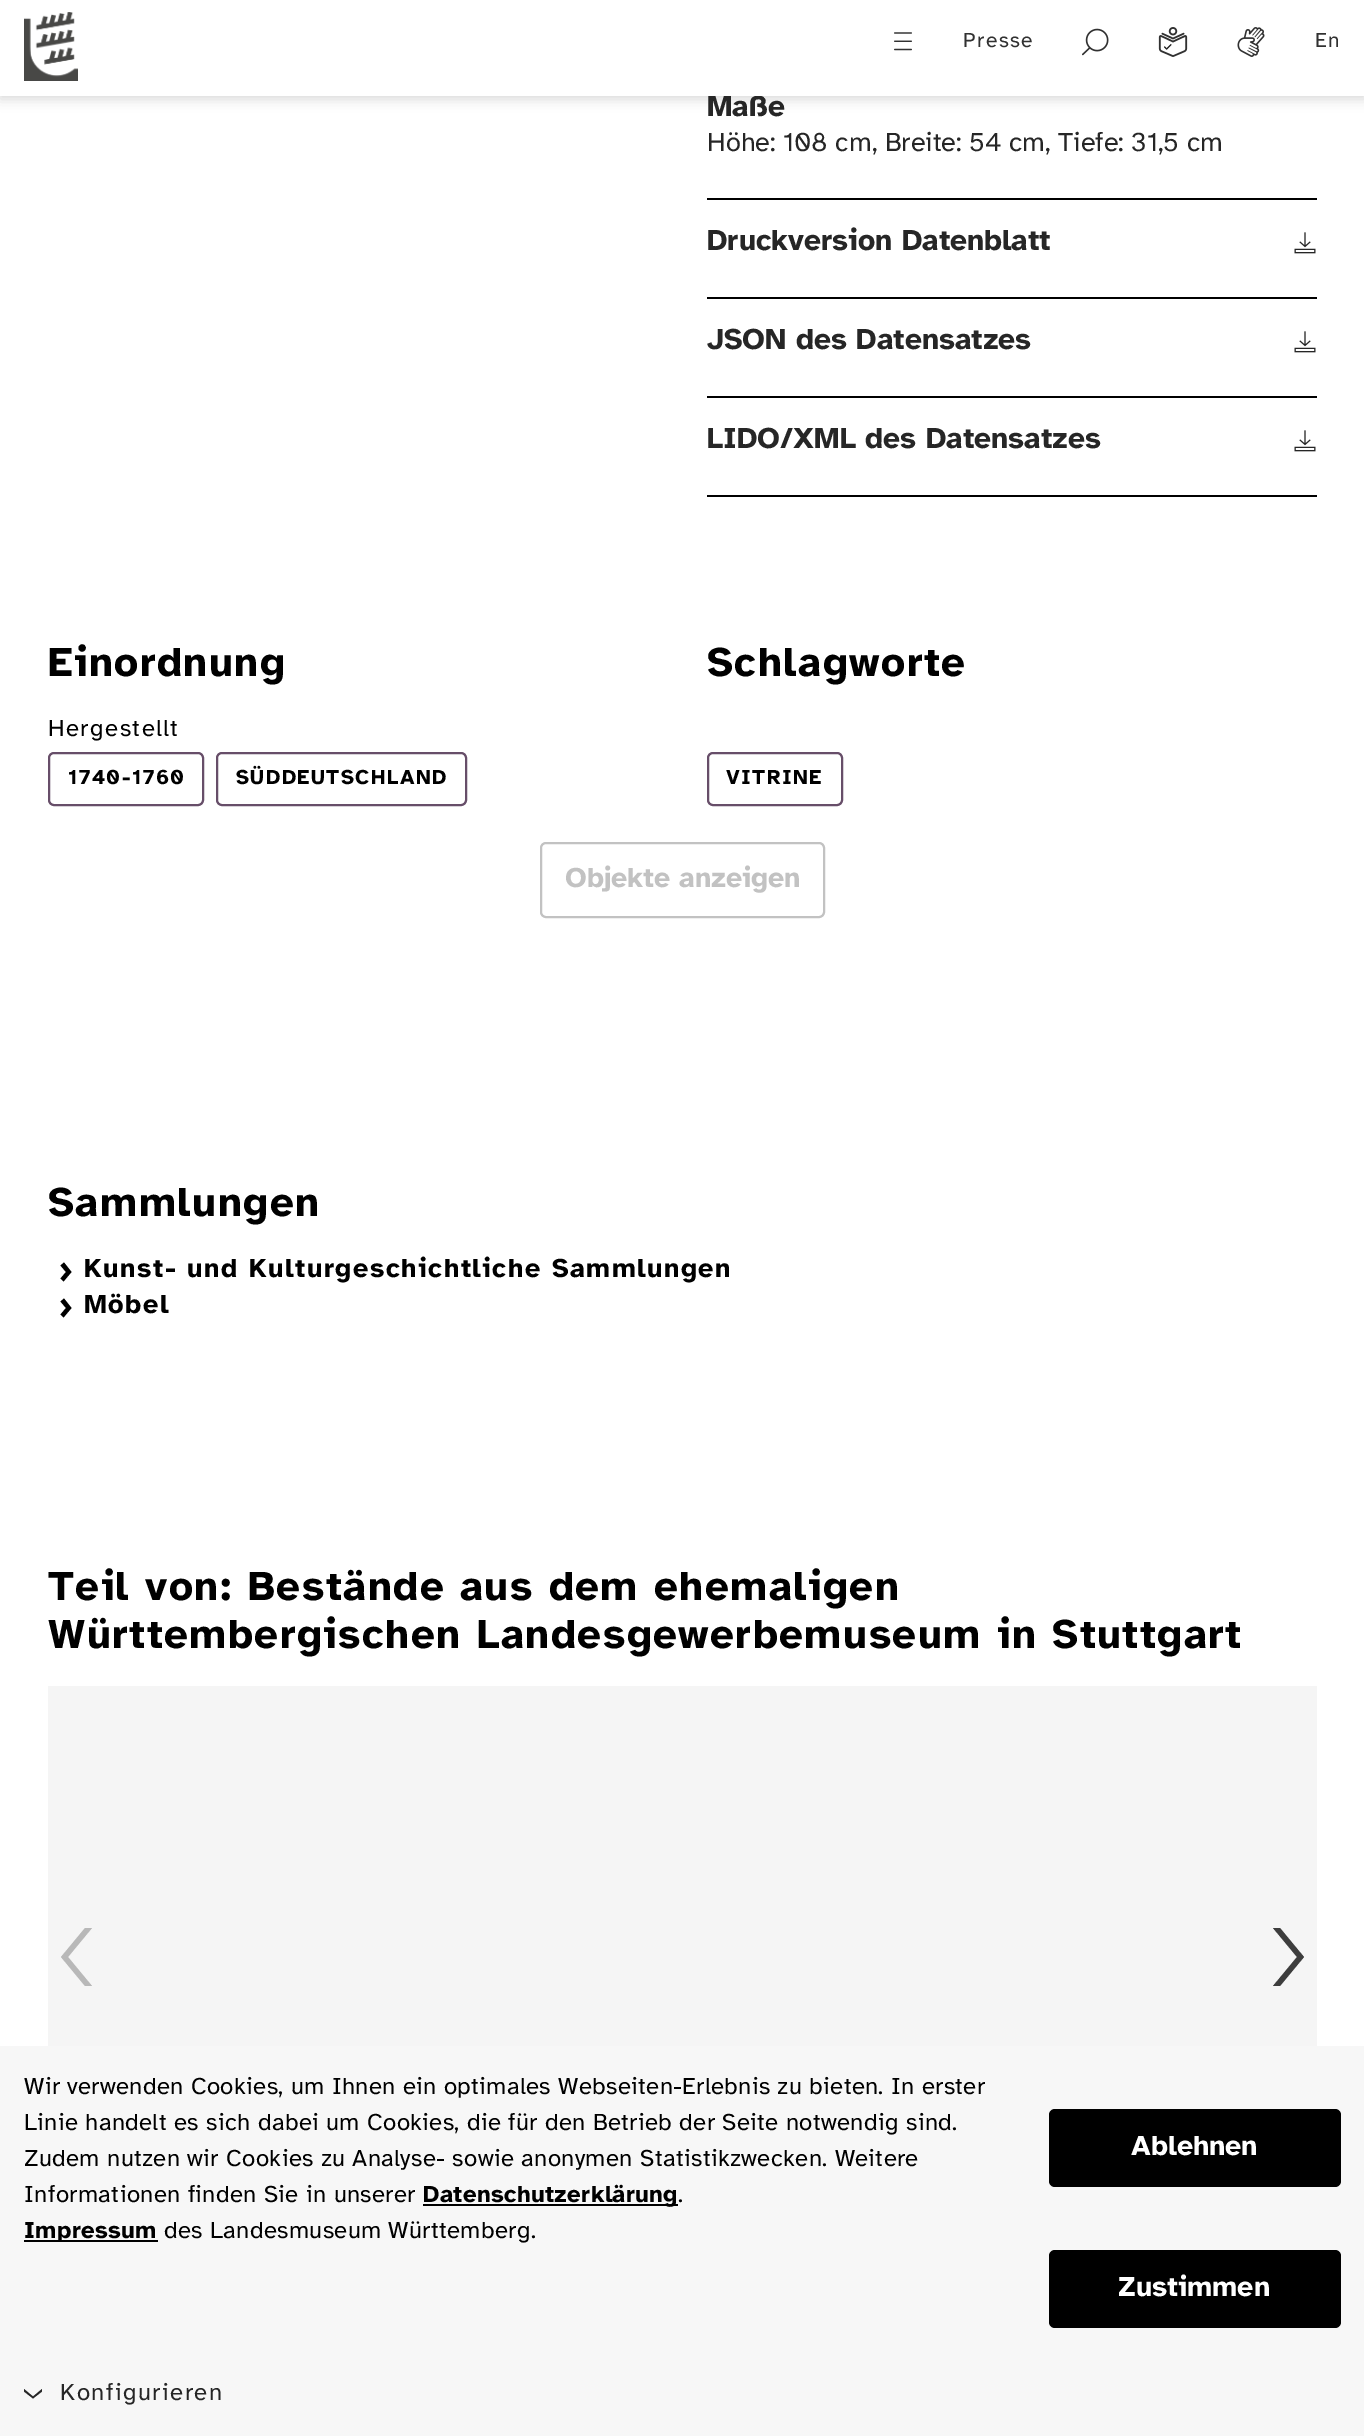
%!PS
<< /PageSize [1364 2436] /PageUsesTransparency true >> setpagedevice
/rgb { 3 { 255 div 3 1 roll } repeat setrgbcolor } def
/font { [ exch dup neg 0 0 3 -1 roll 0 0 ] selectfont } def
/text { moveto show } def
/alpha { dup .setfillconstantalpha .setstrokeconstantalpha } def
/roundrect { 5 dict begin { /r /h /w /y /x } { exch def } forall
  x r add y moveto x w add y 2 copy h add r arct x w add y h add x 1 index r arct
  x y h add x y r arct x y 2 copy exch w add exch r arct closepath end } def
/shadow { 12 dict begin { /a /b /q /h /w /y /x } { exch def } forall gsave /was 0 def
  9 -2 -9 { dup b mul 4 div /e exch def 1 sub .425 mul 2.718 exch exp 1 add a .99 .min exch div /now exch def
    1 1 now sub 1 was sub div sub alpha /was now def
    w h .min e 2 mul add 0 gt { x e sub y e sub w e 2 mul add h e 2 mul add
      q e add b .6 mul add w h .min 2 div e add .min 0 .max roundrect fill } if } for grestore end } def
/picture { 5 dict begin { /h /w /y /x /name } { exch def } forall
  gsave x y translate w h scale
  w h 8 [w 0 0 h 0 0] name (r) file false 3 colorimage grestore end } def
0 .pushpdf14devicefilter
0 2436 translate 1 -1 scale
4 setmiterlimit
255 255 255 rgb
0 0 1364 2436 rectfill
0 0 0 rgb
0 3 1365 96 0 6 0.15 shadow
707 198 610 2 rectfill
707 297 610 2 rectfill
(img_06.rgb) 1294 232 22 22 picture
707 396 610 2 rectfill
(img_06.rgb) 1294 331 22 22 picture
707 495 610 2 rectfill
(img_06.rgb) 1294 430 22 22 picture
103 78 105 rgb
2 setlinewidth
49 753 154 52 5 roundrect stroke
217 753 249 52 5 roundrect stroke
708 753 134 52 5 roundrect stroke
194 194 194 rgb
541 843 283 74 5 roundrect stroke
0 0 0 rgb
64 1262.5 moveto -3.5 3 rlineto 5.5 6.5 rlineto -5.5 6.5 rlineto 3 3 rlineto 8 -9.5 rlineto closepath fill
64 1298.5 moveto -3.5 3 rlineto 5.5 6.5 rlineto -5.5 6.5 rlineto 3 3 rlineto 8 -9.5 rlineto closepath fill
245 245 245 rgb
48 1686 1269 360 rectfill
184 184 184 rgb
92 1928 moveto -24 29 rlineto 24 29 rlineto -7 0 rlineto -24 -29 rlineto 24 -29 rlineto closepath fill
61 61 61 rgb
1273 1986 moveto 24 -29 rlineto -24 -29 rlineto 7 0 rlineto 24 29 rlineto -24 29 rlineto closepath fill
247 247 247 rgb
0 2046 1364 390 rectfill
0 0 0 rgb
423 2204 255 2 rectfill
24 2240 134 2 rectfill
1049 2109 292 78 6 roundrect fill
1049 2250 292 78 6 roundrect fill
38 38 38 rgb
24 2389 moveto 9 7.5 rlineto 9 -7.5 rlineto 0 2.5 rlineto -9 7 rlineto -9 -7 rlineto closepath fill
/AtkinsonHyperlegible-Bold 30 font
(Maße) 707 116 text
255 255 255 rgb
0 0 1364 96 rectfill
/AtkinsonHyperlegible-Regular 21 font
49 49 49 rgb
1315 47 moveto 1.5 0 (En) ashow
(img_05.rgb) 1237 27 28 30 picture
(img_04.rgb) 1158 27 30 30 picture
(img_03.rgb) 1082 28 27 28 picture
963 47 moveto 1.5 0 (Presse) ashow
(img_02.rgb) 894 32 18 19 picture
(img_01.rgb) 24 12 54 69 picture
/AtkinsonHyperlegible-Regular 27 font
38 38 38 rgb
(Höhe: 108 cm, Breite: 54 cm, Tiefe: 31,5 cm) 707 151 text
/AtkinsonHyperlegible-Bold 30 font
(Druckversion Datenblatt) 707 250 text
(JSON des Datensatzes) 707 349 text
(LIDO/XML des Datensatzes) 707 448 text
/AtkinsonHyperlegible-Bold 42 font
0 0 0 rgb
48 676 moveto 1.5 0 (Einordnung) ashow
/AtkinsonHyperlegible-Regular 24 font
48 736 moveto 1.5 0 (Hergestellt) ashow
/AtkinsonHyperlegible-Bold 21 font
68 784 moveto 1.5 0 (1740-1760) ashow
236 784 moveto 1.5 0 (SÜDDEUTSCHLAND) ashow
/AtkinsonHyperlegible-Bold 42 font
707 676 moveto 1.5 0 (Schlagworte) ashow
/AtkinsonHyperlegible-Bold 21 font
726 784 moveto 1.5 0 (VITRINE) ashow
/AtkinsonHyperlegible-Bold 28.5 font
194 194 194 rgb
(Objekte anzeigen) 565 887 text
/AtkinsonHyperlegible-Bold 42 font
0 0 0 rgb
48 1216 moveto 1.5 0 (Sammlungen) ashow
/AtkinsonHyperlegible-Bold 27 font
84 1277 moveto 1.5 0 (Kunst- und Kulturgeschichtliche Sammlungen) ashow
84 1313 moveto 1.5 0 (Möbel) ashow
/AtkinsonHyperlegible-Bold 42 font
48 1600 moveto 1.5 0 (Teil von: Bestände aus dem ehemaligen) ashow
48 1648 moveto 1.5 0 (Württembergischen Landesgewerbemuseum in Stuttgart) ashow
/AtkinsonHyperlegible-Regular 24 font
24 2094 moveto 0.38 0 (Wir verwenden Cookies, um Ihnen ein optimales Webseiten-Erlebnis zu bieten. In erster) ashow
24 2130 moveto 0.38 0 (Linie handelt es sich dabei um Cookies, die für den Betrieb der Seite notwendig sind.) ashow
24 2166 moveto 0.38 0 (Zudem nutzen wir Cookies zu Analyse- sowie anonymen Statistikzwecken. Weitere) ashow
24 2202 moveto 0.38 0 (Informationen finden Sie in unserer) ashow
/AtkinsonHyperlegible-Bold 24 font
423 2202 moveto 0.38 0 (Datenschutzerklärung) ashow
/AtkinsonHyperlegible-Regular 24 font
678 2202 moveto 0.38 0 (.) ashow
/AtkinsonHyperlegible-Bold 24 font
24 2238 moveto 0.38 0 (Impressum) ashow
/AtkinsonHyperlegible-Regular 24 font
164 2238 moveto 0.38 0 (des Landesmuseum Württemberg.) ashow
/AtkinsonHyperlegible-Bold 28.5 font
255 255 255 rgb
(Ablehnen) 1131 2155 text
(Zustimmen) 1118 2296 text
/AtkinsonHyperlegible-Regular 24 font
38 38 38 rgb
60 2400 moveto 1.5 0 (Konfigurieren) ashow
.poppdf14devicefilter showpage
